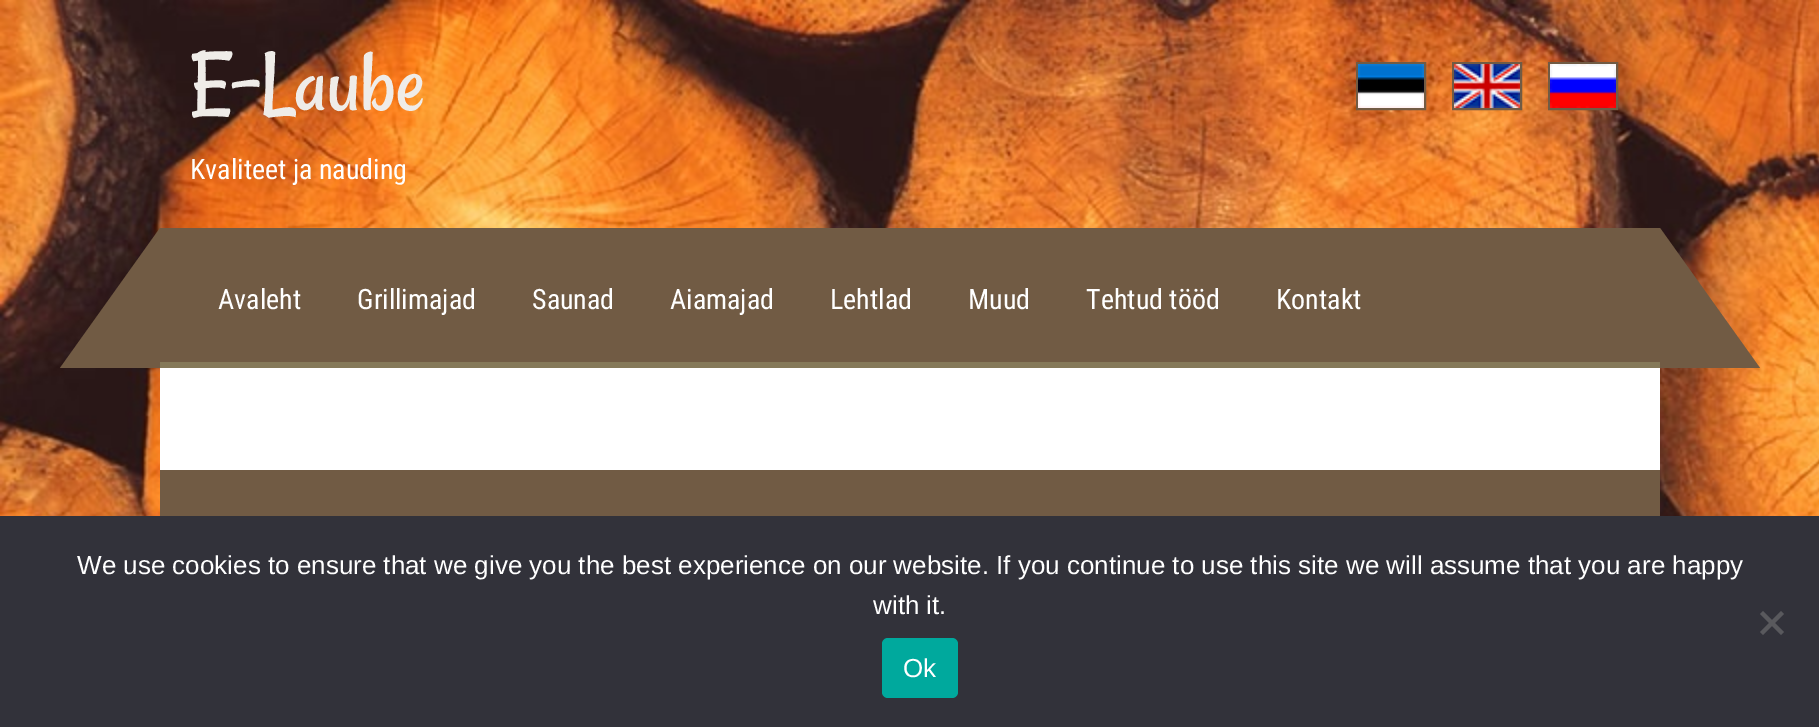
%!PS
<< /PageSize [1819 727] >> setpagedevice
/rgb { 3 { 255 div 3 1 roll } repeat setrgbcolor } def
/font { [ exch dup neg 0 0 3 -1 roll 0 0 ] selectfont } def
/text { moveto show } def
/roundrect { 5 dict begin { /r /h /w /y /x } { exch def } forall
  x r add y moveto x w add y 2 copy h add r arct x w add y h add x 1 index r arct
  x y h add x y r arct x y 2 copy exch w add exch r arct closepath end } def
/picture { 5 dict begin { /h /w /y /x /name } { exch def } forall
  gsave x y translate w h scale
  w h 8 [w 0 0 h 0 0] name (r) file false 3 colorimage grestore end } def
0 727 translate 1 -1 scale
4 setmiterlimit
255 255 255 rgb
0 0 1819 727 rectfill
(img_01.rgb) 0 0 1819 516 picture
113 91 68 rgb
2 setlinewidth
1357 63 68 46 rectstroke
(img_02.rgb) 1358 64 66 44 picture
1453 63 68 46 rectstroke
(img_03.rgb) 1454 64 66 44 picture
1549 63 68 46 rectstroke
(img_04.rgb) 1550 64 66 44 picture
160 228 1500 134 rectfill
160 368 moveto -100 0 rlineto 100 -140 rlineto closepath fill
1660 368 moveto 0 -140 rlineto 100 140 rlineto closepath fill
255 255 255 rgb
160 368 1500 102 rectfill
133 121 89 rgb
160 362 1500 6 rectfill
113 91 68 rgb
160 470 1500 46 rectfill
50 50 58 rgb
0 516 1819 211 rectfill
89 89 93 rgb
1781 611 moveto 3 3 rlineto -21 21 rlineto -3 -3 rlineto closepath fill
1760 614 moveto 3 -3 rlineto 21 21 rlineto -3 3 rlineto closepath fill
0 169 157 rgb
882 638 76 60 6 roundrect fill
/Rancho-Regular 90 font
239 236 232 rgb
(E-Laube) 190 110 text
/RobotoCondensed-Regular 28 font
255 255 255 rgb
(Kvaliteet ja nauding) 190 179 text
(Avaleht) 218 309 text
(Grillimajad) 357 309 text
(Saunad) 532 309 text
(Aiamajad) 670 309 text
(Lehtlad) 830 309 text
(Muud) 968 309 text
(Tehtud tööd) 1086 309 text
(Kontakt) 1276 309 text
/LiberationSans-Regular 26 font
(We use cookies to ensure that we give you the best experience on our website. If you continue to use this site we will assume that you are happy) 77 574 text
(with it.) 873 614 text
(Ok) 903 677 text
showpage
